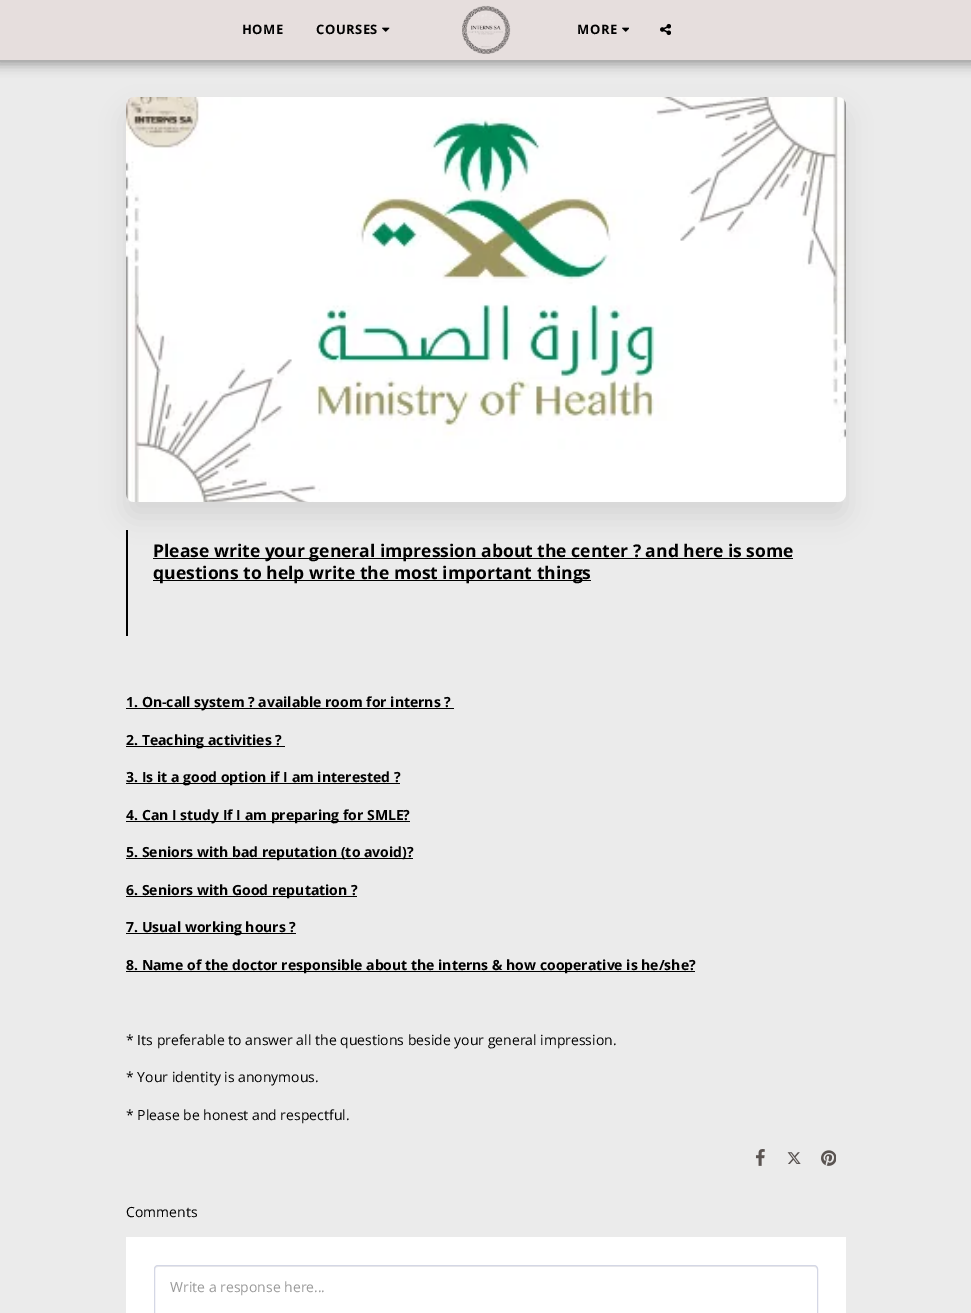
%!PS
<< /PageSize [971 1313] /PageUsesTransparency true >> setpagedevice
/rgb { 3 { 255 div 3 1 roll } repeat setrgbcolor } def
/font { [ exch dup neg 0 0 3 -1 roll 0 0 ] selectfont } def
/text { moveto show } def
/alpha { dup .setfillconstantalpha .setstrokeconstantalpha } def
/roundrect { 5 dict begin { /r /h /w /y /x } { exch def } forall
  x r add y moveto x w add y 2 copy h add r arct x w add y h add x 1 index r arct
  x y h add x y r arct x y 2 copy exch w add exch r arct closepath end } def
/shadow { 12 dict begin { /a /b /q /h /w /y /x } { exch def } forall gsave /was 0 def
  9 -2 -9 { dup b mul 4 div /e exch def 1 sub .425 mul 2.718 exch exp 1 add a .99 .min exch div /now exch def
    1 1 now sub 1 was sub div sub alpha /was now def
    w h .min e 2 mul add 0 gt { x e sub y e sub w e 2 mul add h e 2 mul add
      q e add b .6 mul add w h .min 2 div e add .min 0 .max roundrect fill } if } for grestore end } def
/picture { 5 dict begin { /h /w /y /x /name } { exch def } forall
  gsave x y translate w h scale
  w h 8 [w 0 0 h 0 0] name (r) file false 3 colorimage grestore end } def
0 .pushpdf14devicefilter
0 1313 translate 1 -1 scale
4 setmiterlimit
235 235 235 rgb
0 0 971 1313 rectfill
0 0 0 rgb
-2 0 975 64 0 6 0.35 shadow
230 222 221 rgb
0 0 971 60 rectfill
(img_01.rgb) 382 27 8 5 picture
(img_02.rgb) 462 5 49 49 picture
(img_03.rgb) 622 27 7 5 picture
(img_04.rgb) 660 23 11 13 picture
0 0 0 rgb
126 530 2 106 rectfill
126 112 720 405 8 12.5 0.08 shadow
(img_05.rgb) 126 97 720 405 picture
153 558 640 1 rectfill
153 580 438 1 rectfill
126 708 328 1 rectfill
126 746 159 1 rectfill
126 783 274 1 rectfill
126 821 284 1 rectfill
126 858 287 1 rectfill
126 896 231 1 rectfill
126 933 170 1 rectfill
126 971 569 1 rectfill
(img_06.rgb) 755 1149 10 17 picture
(img_07.rgb) 787 1152 14 12 picture
(img_08.rgb) 821 1150 15 16 picture
255 255 255 rgb
126 1237 720 76 rectfill
236 236 236 rgb
158 1267 moveto 656 0 rlineto 2 0 3 1 3 3 rcurveto 0 -1 rlineto 0 -2 -1 -3 -3 -3 rcurveto -656 0 rlineto -2 0 -3 1 -3 3 rcurveto 0 1 rlineto 0 -2 1 -3 3 -3 rcurveto closepath fill
212 215 229 rgb
154.5 1265.5 663 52 3.5 roundrect stroke
/OpenSans-Bold 13 font
0 0 0 rgb
242 34 moveto 0.5 0 (HOME) ashow
316 34 moveto 0.5 0 (COURSES) ashow
577 34 moveto 0.5 0 (MORE) ashow
/OpenSans-Bold 17.5 font
(Please write your general impression about the center ? and here is some) 153 557 text
(questions to help write the most important things) 153 579 text
/OpenSans-Bold 14 font
(1. On-call system ? available room for interns ?) 126 707 text
(2. Teaching activities ?) 126 745 text
(3. Is it a good option if I am interested ?) 126 782 text
(4. Can I study If I am preparing for SMLE?) 126 820 text
(5. Seniors with bad reputation \(to avoid\)?) 126 857 text
(6. Seniors with Good reputation ?) 126 895 text
(7. Usual working hours ?) 126 932 text
(8. Name of the doctor responsible about the interns & how cooperative is he/she?) 126 970 text
/OpenSans-Regular 14 font
(* Its preferable to answer all the questions beside your general impression.) 126 1045 text
(* Your identity is anonymous.) 126 1082 text
(* Please be honest and respectful.) 126 1120 text
(Comments) 126 1217 text
153 153 153 rgb
(Write a response here...) 170 1292 text
.poppdf14devicefilter showpage
